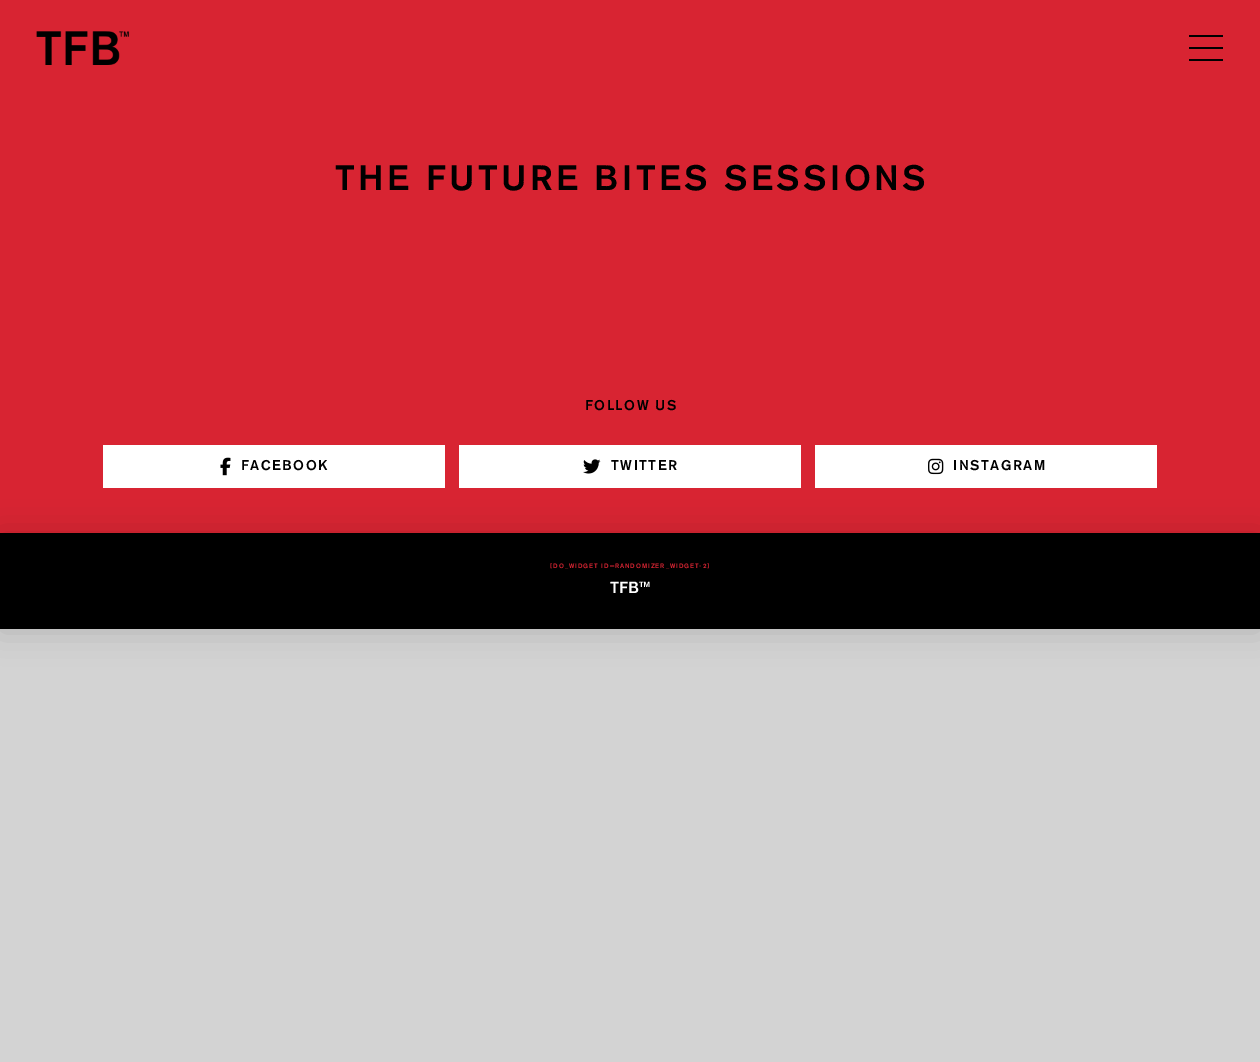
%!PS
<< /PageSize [1260 1062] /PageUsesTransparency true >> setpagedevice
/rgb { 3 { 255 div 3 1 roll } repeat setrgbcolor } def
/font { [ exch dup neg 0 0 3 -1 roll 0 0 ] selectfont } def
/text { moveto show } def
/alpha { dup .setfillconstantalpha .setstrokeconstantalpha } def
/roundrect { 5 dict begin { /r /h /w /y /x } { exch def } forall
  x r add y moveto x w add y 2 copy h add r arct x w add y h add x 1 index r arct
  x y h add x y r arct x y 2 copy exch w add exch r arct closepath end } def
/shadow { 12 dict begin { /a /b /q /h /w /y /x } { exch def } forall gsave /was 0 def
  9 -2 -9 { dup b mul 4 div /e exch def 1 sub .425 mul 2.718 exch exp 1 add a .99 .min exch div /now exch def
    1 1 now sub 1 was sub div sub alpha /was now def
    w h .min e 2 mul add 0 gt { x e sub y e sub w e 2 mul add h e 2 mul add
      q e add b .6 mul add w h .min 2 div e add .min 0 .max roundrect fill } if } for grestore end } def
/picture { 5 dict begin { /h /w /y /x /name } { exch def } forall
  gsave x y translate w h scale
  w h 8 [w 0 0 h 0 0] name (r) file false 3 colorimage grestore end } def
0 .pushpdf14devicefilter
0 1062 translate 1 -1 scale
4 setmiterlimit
211 211 211 rgb
0 0 1260 1062 rectfill
216 36 50 rgb
0 0 1260 533 rectfill
(img_01.rgb) 36 31 94 34 picture
0 0 0 rgb
1189 35 34 2 rectfill
1189 47 34 2 rectfill
1189 59 34 2 rectfill
255 255 255 rgb
103 445 342 43 rectfill
(img_02.rgb) 220 457 11 19 picture
459 445 342 43 rectfill
(img_03.rgb) 583 459 18 15 picture
815 445 342 43 rectfill
(img_04.rgb) 928 458 16 17 picture
0 0 0 rgb
0 535 1260 96 0 16 0.15 shadow
0 533 1260 96 rectfill
/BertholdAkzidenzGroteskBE-Medium 35 font
335 190 moveto 3.5 0 (THE FUTURE BITES SESSIONS) ashow
/BertholdAkzidenzGroteskBE-Medium 14 font
585 410 moveto 1.5 0 (FOLLOW US) ashow
241 470 moveto 1.5 0 (FACEBOOK) ashow
611 470 moveto 1.5 0 (TWITTER) ashow
953 470 moveto 1.5 0 (INSTAGRAM) ashow
/BertholdAkzidenzGroteskBE-Medium 6.4 font
216 36 50 rgb
550 568 moveto 0.95 0 ([DO_WIDGET ID=RANDOMIZER_WIDGET-2]) ashow
/BertholdAkzidenzGroteskBE-Medium 16 font
255 255 255 rgb
(TFB™) 610 593 text
.poppdf14devicefilter showpage
